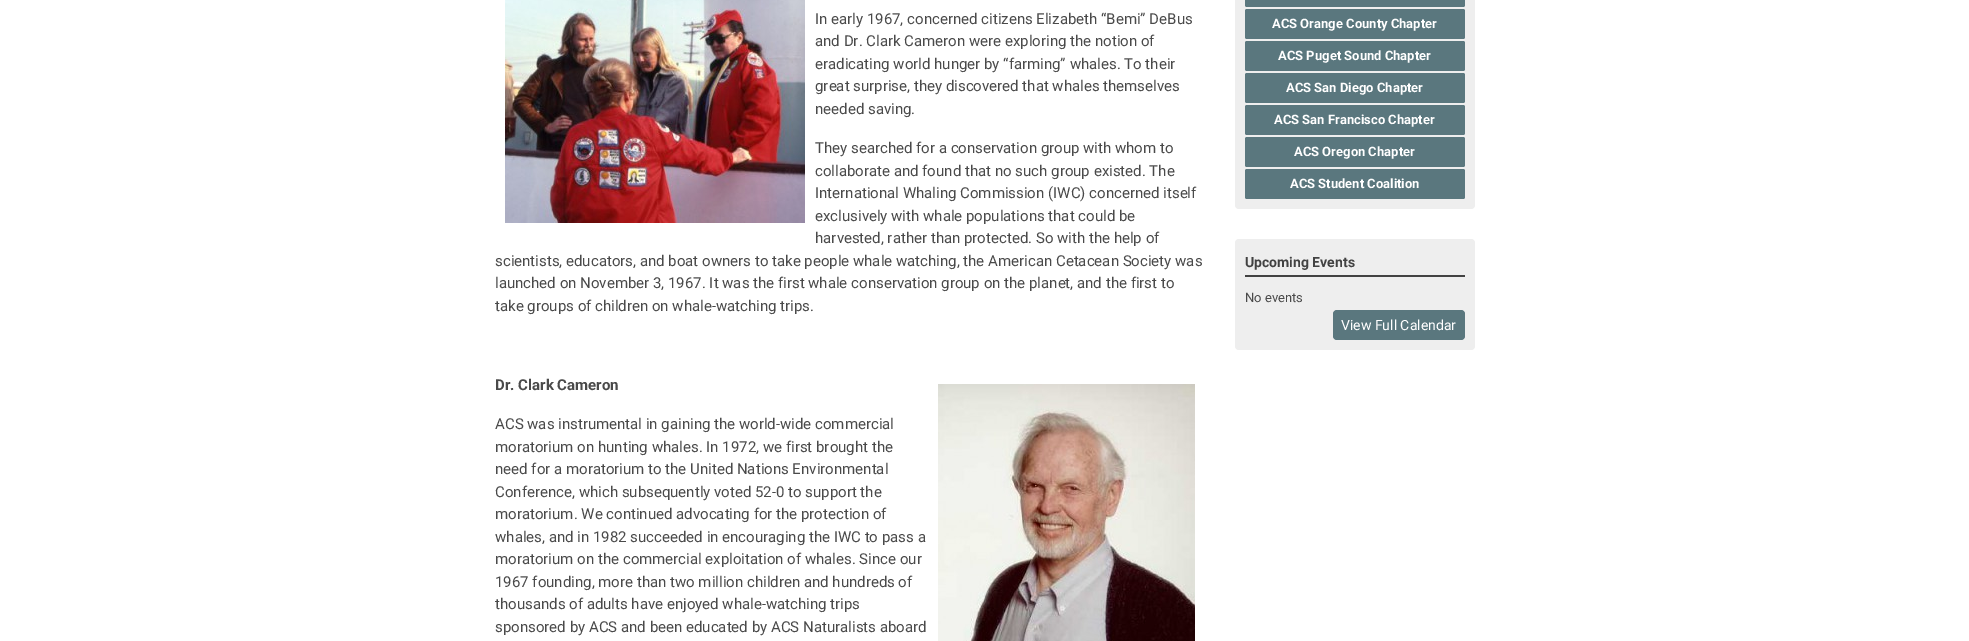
%!PS
<< /PageSize [1969 641] >> setpagedevice
/rgb { 3 { 255 div 3 1 roll } repeat setrgbcolor } def
/font { [ exch dup neg 0 0 3 -1 roll 0 0 ] selectfont } def
/text { moveto show } def
/roundrect { 5 dict begin { /r /h /w /y /x } { exch def } forall
  x r add y moveto x w add y 2 copy h add r arct x w add y h add x 1 index r arct
  x y h add x y r arct x y 2 copy exch w add exch r arct closepath end } def
/picture { 5 dict begin { /h /w /y /x /name } { exch def } forall
  gsave x y translate w h scale
  w h 8 [w 0 0 h 0 0] name (r) file false 3 colorimage grestore end } def
0 641 translate 1 -1 scale
4 setmiterlimit
255 255 255 rgb
0 0 1969 641 rectfill
(img_01.rgb) 505 0 300 223 picture
(img_02.rgb) 938 384 257 257 picture
238 238 238 rgb
1235 -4 240 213 4 roundrect fill
90 119 126 rgb
1245 -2 220 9 2 roundrect fill
1245 9 220 30 2 roundrect fill
1245 41 220 30 2 roundrect fill
1245 73 220 30 2 roundrect fill
1245 105 220 30 2 roundrect fill
1245 137 220 30 2 roundrect fill
1245 169 220 30 2 roundrect fill
238 238 238 rgb
1235 239 240 111 4 roundrect fill
66 66 66 rgb
1245 275 220 2 rectfill
90 119 126 rgb
1333 310 132 30 4 roundrect fill
/Roboto-Regular 15 font
74 74 74 rgb
(In early 1967, concerned citizens Elizabeth “Bemi” DeBus) 815 24 text
(and Dr. Clark Cameron were exploring the notion of) 815 46 text
(eradicating world hunger by “farming” whales. To their) 815 69 text
(great surprise, they discovered that whales themselves) 815 91 text
(needed saving.) 815 114 text
(They searched for a conservation group with whom to) 815 153 text
(collaborate and found that no such group existed. The) 815 176 text
(International Whaling Commission \(IWC\) concerned itself) 815 198 text
(exclusively with whale populations that could be) 815 221 text
(harvested, rather than protected. So with the help of) 815 243 text
(scientists, educators, and boat owners to take people whale watching, the American Cetacean Society was) 495 266 text
(launched on November 3, 1967. It was the first whale conservation group on the planet, and the first to) 495 288 text
(take groups of children on whale-watching trips.) 495 311 text
/Roboto-Bold 15 font
(Dr. Clark Cameron) 495 390 text
/Roboto-Regular 15 font
(ACS was instrumental in gaining the world-wide commercial) 495 429 text
(moratorium on hunting whales. In 1972, we first brought the) 495 452 text
(need for a moratorium to the United Nations Environmental) 495 474 text
(Conference, which subsequently voted 52-0 to support the) 495 497 text
(moratorium. We continued advocating for the protection of) 495 519 text
(whales, and in 1982 succeeded in encouraging the IWC to pass a) 495 542 text
(moratorium on the commercial exploitation of whales. Since our) 495 564 text
(1967 founding, more than two million children and hundreds of) 495 587 text
(thousands of adults have enjoyed whale-watching trips) 495 609 text
(sponsored by ACS and been educated by ACS Naturalists aboard) 495 632 text
/Roboto-Bold 13 font
255 255 255 rgb
(ACS Orange County Chapter) 1272 28 text
(ACS Puget Sound Chapter) 1278 60 text
(ACS San Diego Chapter) 1286 92 text
(ACS San Francisco Chapter) 1274 124 text
(ACS Oregon Chapter) 1294 156 text
(ACS Student Coalition) 1290 188 text
/Roboto-Bold 14 font
66 66 66 rgb
(Upcoming Events) 1245 267 text
/Roboto-Regular 13 font
74 74 74 rgb
(No events) 1245 302 text
/Roboto-Regular 14 font
255 255 255 rgb
(View Full Calendar) 1341 330 text
showpage
